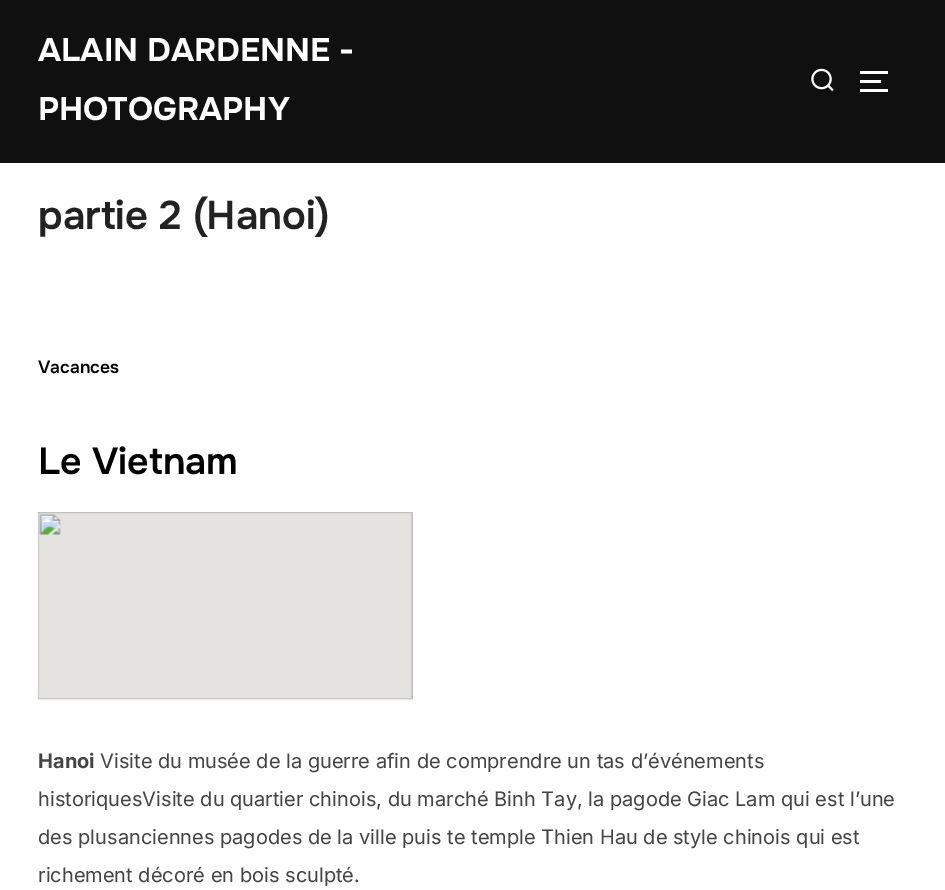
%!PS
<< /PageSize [945 890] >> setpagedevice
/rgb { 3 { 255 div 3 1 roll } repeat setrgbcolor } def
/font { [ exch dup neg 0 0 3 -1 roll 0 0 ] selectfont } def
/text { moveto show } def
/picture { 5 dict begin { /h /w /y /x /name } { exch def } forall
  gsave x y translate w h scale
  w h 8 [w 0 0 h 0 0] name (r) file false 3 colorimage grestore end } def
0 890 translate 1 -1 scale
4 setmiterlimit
255 255 255 rgb
0 0 945 890 rectfill
16 16 16 rgb
0 0 945 163 rectfill
(img_01.rgb) 811 68 23 24 picture
255 255 255 rgb
860 71 28 3 rectfill
860 80 21 3 rectfill
860 89 28 3 rectfill
(img_02.rgb) 37 512 376 188 picture
/Onest-Bold 32.5 font
(ALAIN DARDENNE -) 38 61 text
(PHOTOGRAPHY) 38 120 text
/Onest-SemiBold 40 font
34 34 34 rgb
(partie 2 \(Hanoi\)) 38 229 text
/Onest-SemiBold 17.5 font
0 0 0 rgb
(Vacances) 38 373 text
/Onest-SemiBold 37.5 font
(Le Vietnam) 38 474 text
/Inter-Bold 20 font
68 68 68 rgb
(Hanoi) 38 768 text
/Inter-Regular 20 font
(Visite du musée de la guerre afin de comprendre un tas d’événements) 100 768 text
(historiquesVisite du quartier chinois, du marché Binh Tay, la pagode Giac Lam qui est l’une) 38 806 text
(des plusanciennes pagodes de la ville puis te temple Thien Hau de style chinois qui est) 38 844 text
(richement décoré en bois sculpté.) 38 882 text
showpage
